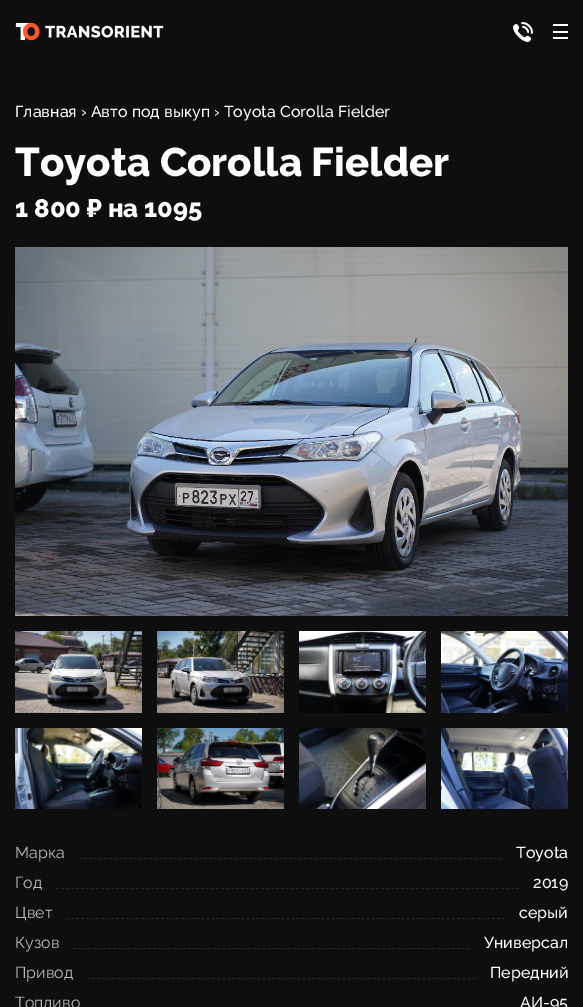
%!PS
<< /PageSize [583 1007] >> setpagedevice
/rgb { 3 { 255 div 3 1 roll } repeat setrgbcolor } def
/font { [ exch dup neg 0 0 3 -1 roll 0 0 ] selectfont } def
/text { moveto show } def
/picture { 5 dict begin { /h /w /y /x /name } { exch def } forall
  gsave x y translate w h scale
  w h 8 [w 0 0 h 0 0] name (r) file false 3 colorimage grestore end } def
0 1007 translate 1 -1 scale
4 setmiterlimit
14 14 14 rgb
0 0 583 1007 rectfill
(img_01.rgb) 15 22 149 19 picture
(img_02.rgb) 513 22 20 20 picture
255 255 255 rgb
553 24 15 2 rectfill
553 31 15 2 rectfill
553 37 15 2 rectfill
(img_03.rgb) 15 247 553 369 picture
(img_04.rgb) 15 631 127 82 picture
(img_05.rgb) 157 631 127 82 picture
(img_06.rgb) 299 631 127 82 picture
(img_07.rgb) 441 631 127 82 picture
(img_08.rgb) 15 728 127 81 picture
(img_09.rgb) 157 728 127 81 picture
(img_10.rgb) 299 728 127 81 picture
(img_11.rgb) 441 728 127 81 picture
35 35 35 rgb
[3 2] 0 setdash
79 858.5 moveto 423 0 rlineto stroke
56 888.5 moveto 463 0 rlineto stroke
[3 2.01] 0 setdash
66 918.5 moveto 439 0 rlineto stroke
[3 1.99] 0 setdash
73 948.5 moveto 397 0 rlineto stroke
[3 2.01] 0 setdash
87 978.5 moveto 389 0 rlineto stroke
/Raleway-Medium 16 font
255 255 255 rgb
(Главная › Авто под выкуп › Toyota Corolla Fielder) 15 117 text
/Raleway-ExtraBold 40 font
(Toyota Corolla Fielder) 15 176 text
/Raleway-ExtraBold 25.5 font
(1 800 ₽ на 1095) 15 217 text
/Raleway-Regular 16 font
191 191 191 rgb
(Марка) 15 858 text
/Raleway-Medium 16 font
255 255 255 rgb
(Toyota) 516 858 text
/Raleway-Regular 16 font
191 191 191 rgb
(Год) 15 888 text
/Raleway-Medium 16 font
255 255 255 rgb
(2019) 533 888 text
/Raleway-Regular 16 font
191 191 191 rgb
(Цвет) 15 918 text
/Raleway-Medium 16 font
255 255 255 rgb
(серый) 519 918 text
/Raleway-Regular 16 font
191 191 191 rgb
(Кузов) 15 948 text
/Raleway-Medium 16 font
255 255 255 rgb
(Универсал) 484 948 text
/Raleway-Regular 16 font
191 191 191 rgb
(Привод) 15 978 text
/Raleway-Medium 16 font
255 255 255 rgb
(Передний) 490 978 text
/Raleway-Regular 16 font
191 191 191 rgb
(Топливо) 15 1008 text
/Raleway-Medium 16 font
255 255 255 rgb
(АИ-95) 520 1008 text
showpage
